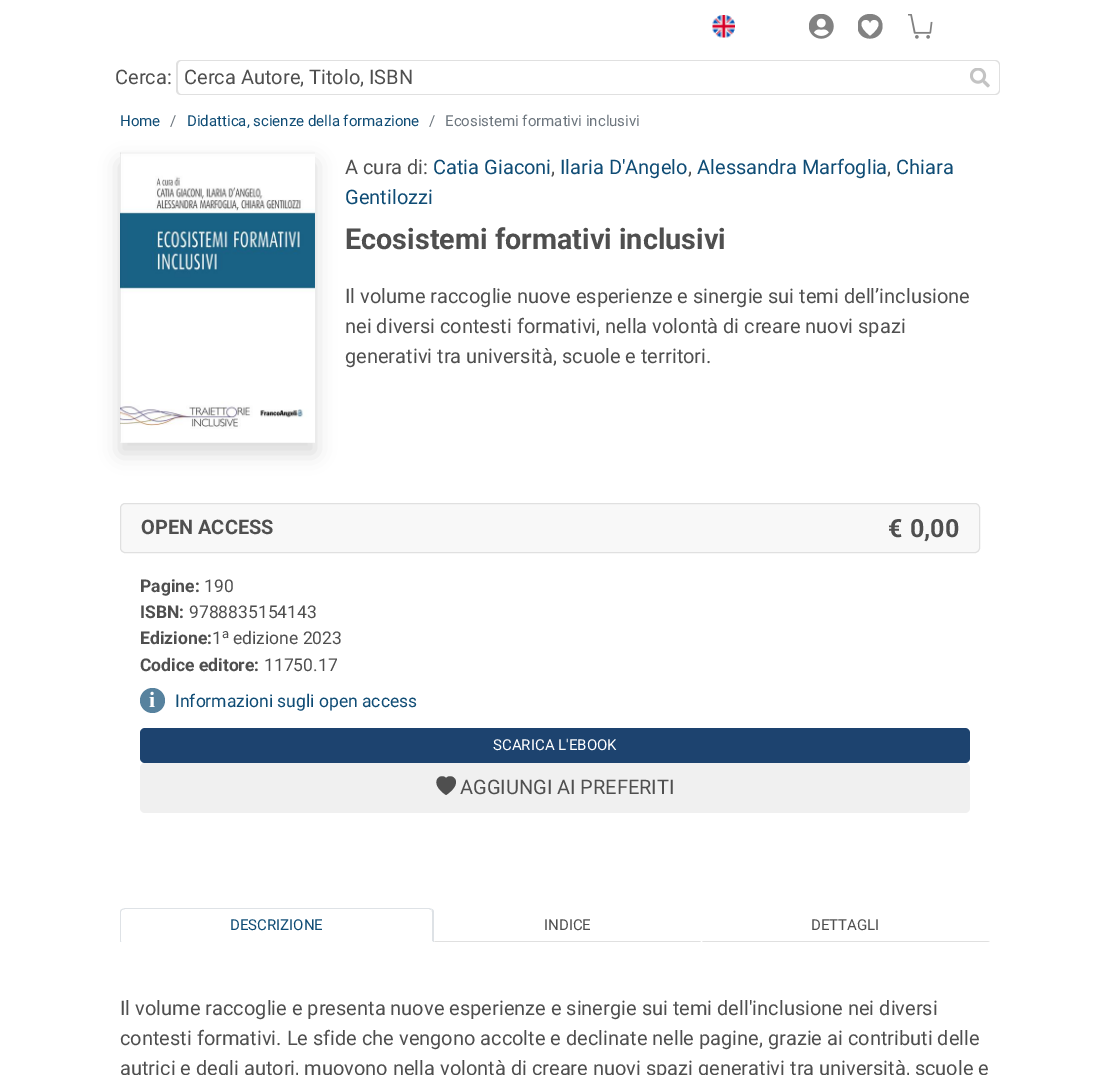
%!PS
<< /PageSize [1109 1075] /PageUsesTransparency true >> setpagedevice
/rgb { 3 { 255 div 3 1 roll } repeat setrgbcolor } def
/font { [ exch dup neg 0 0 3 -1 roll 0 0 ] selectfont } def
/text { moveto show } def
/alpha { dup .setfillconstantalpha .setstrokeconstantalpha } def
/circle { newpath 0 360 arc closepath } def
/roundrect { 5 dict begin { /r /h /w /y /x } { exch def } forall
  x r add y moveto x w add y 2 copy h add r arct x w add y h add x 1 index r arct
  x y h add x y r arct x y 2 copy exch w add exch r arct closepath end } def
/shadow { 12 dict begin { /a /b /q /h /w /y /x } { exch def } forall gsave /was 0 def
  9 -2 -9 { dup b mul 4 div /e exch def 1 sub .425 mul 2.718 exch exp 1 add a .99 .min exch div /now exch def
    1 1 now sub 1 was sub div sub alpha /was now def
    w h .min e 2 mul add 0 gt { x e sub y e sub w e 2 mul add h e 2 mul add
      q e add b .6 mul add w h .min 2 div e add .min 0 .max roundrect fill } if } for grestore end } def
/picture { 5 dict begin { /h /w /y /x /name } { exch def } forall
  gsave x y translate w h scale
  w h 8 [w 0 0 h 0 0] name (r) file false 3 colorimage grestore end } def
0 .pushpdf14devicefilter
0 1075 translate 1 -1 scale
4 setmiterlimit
255 255 255 rgb
0 0 1109 1075 rectfill
(img_01.rgb) 712 15 23 23 picture
(img_02.rgb) 809 14 25 25 picture
gsave
858 14 25 25 rectclip
130 130 130 rgb
870 36 moveto -19 -14.5 -1.5 -20.5 0 -13 rcurveto 1.5 -7.5 19 -1.5 0 13 rcurveto closepath 882.5 26 moveto 0 -16 -25 -16 -25 0 rcurveto 0 17 25 16.5 25 0 rcurveto closepath fill
grestore
(img_03.rgb) 908 14 25 25 picture
224 224 224 rgb
181 60 moveto 779 0 rlineto 0 35 rlineto -779 0 rlineto -3 0 -5 -2 -5 -5 rcurveto 0 -25 rlineto 0 -3 2 -5 5 -5 rcurveto closepath 181 61 moveto 779 0 rlineto 0 33 rlineto -779 0 rlineto -2 0 -3 -2 -3 -4 rcurveto 0 -25 rlineto 0 -2 1 -4 3 -4 rcurveto closepath eofill
960 60 moveto 35 0 rlineto 3 0 5 2 5 5 rcurveto 0 25 rlineto 0 3 -2 5 -5 5 rcurveto -35 0 rlineto closepath 960 61 moveto 35 0 rlineto 2 0 4 2 4 4 rcurveto 0 25 rlineto 0 2 -2 4 -4 4 rcurveto -35 0 rlineto closepath eofill
(img_04.rgb) 970 68 20 20 picture
0 0 0 rgb
120 163 195 290 0 10 0.15 shadow
(img_05.rgb) 120 152 195 291 picture
248 248 248 rgb
120.5 503.5 859 49 4.5 roundrect gsave fill grestore
224 224 224 rgb
stroke
87 130 158 rgb
152.5 700.5 12.5 circle fill
29 67 111 rgb
140 728 830 35 5 roundrect fill
240 240 240 rgb
140 763 830 50 5 roundrect fill
79 79 79 rgb
446 778 moveto 6 -6 19 4.5 0 17 rcurveto -18.5 -12.5 -5.5 -23 0 -17 rcurveto closepath fill
222 226 230 rgb
125 908 moveto -3 1 rlineto 0 1 rlineto 3 -1 rlineto 304 0 rlineto 2 1 rlineto 1 -1 rlineto -3 -1 rlineto closepath fill
432.5 909 moveto 1.5 2 rlineto 0 31 rlineto -1 0 rlineto -1 -1 rlineto 0 -29 rlineto 0 -1 0 -1.5 -0.5 -2 rcurveto closepath fill
255 255 255 rgb
433 942 moveto -313 0 rlineto 2 -1 rlineto 310 0 rlineto closepath fill
222 226 230 rgb
120 912 moveto 0 30 rlineto 0.5 0 rlineto 1 -1 rlineto -0.5 0 rlineto 0 -29.5 rlineto 1 -1.5 rlineto -0.5 -1 rlineto -1 1 -1.5 2 -1.5 3 rcurveto closepath fill
224 224 224 rgb
701 942 moveto -267 0 rlineto 1 -1 rlineto 265 0 rlineto closepath fill
990 942 moveto -288 0 rlineto 1 -1 rlineto 285 0 rlineto closepath fill
/Roboto-Regular 20 font
79 79 79 rgb
(Cerca:) 115 84 text
(Cerca Autore, Titolo, ISBN) 184 84 text
/Roboto-Regular 15 font
15 76 117 rgb
(Home) 120 126 text
108 117 125 rgb
(/) 170 126 text
15 76 117 rgb
(Didattica, scienze della formazione) 187 126 text
108 117 125 rgb
(/) 429 126 text
(Ecosistemi formativi inclusivi) 445 126 text
/Roboto-Regular 20 font
79 79 79 rgb
(A cura di:) 345 174 text
15 76 117 rgb
(Catia Giaconi) 433 174 text
79 79 79 rgb
(,) 551 174 text
15 76 117 rgb
(Ilaria D'Angelo) 560 174 text
79 79 79 rgb
(,) 688 174 text
15 76 117 rgb
(Alessandra Marfoglia) 697 174 text
79 79 79 rgb
(,) 887 174 text
15 76 117 rgb
(Chiara) 896 174 text
(Gentilozzi) 345 204 text
/Roboto-Bold 28.8 font
79 79 79 rgb
(Ecosistemi formativi inclusivi) 345 249 text
/Roboto-Regular 20 font
(Il volume raccoglie nuove esperienze e sinergie sui temi dell’inclusione) 345 303 text
(nei diversi contesti formativi, nella volontà di creare nuovi spazi) 345 333 text
(generativi tra università, scuole e territori.) 345 363 text
/Roboto-Bold 20 font
(OPEN ACCESS) 141 534 text
/Roboto-Bold 25 font
(€) 888 537 text
(0,00) 910 537 text
/Roboto-Bold 17.5 font
(Pagine:) 140 592 text
/Roboto-Regular 17.5 font
(190) 204 592 text
/Roboto-Bold 17.5 font
(ISBN:) 140 618 text
/Roboto-Regular 17.5 font
(9788835154143) 189 618 text
/Roboto-Bold 17.5 font
(Edizione:) 140 644 text
/Roboto-Regular 17.5 font
(1) 212 644 text
/Roboto-Regular 13 font
(a) 222 638 text
/Roboto-Regular 17.5 font
(edizione 2023) 233 644 text
/Roboto-Bold 17.5 font
(Codice editore:) 140 671 text
/Roboto-Regular 17.5 font
(11750.17) 264 671 text
/LiberationSerif-Bold 22 font
255 255 255 rgb
(i) 149 707 text
/Roboto-Regular 17.5 font
15 76 117 rgb
(Informazioni sugli open access) 175 707 text
/Roboto-Regular 15 font
255 255 255 rgb
(SCARICA L'EBOOK) 493 750 text
/Roboto-Regular 20 font
79 79 79 rgb
(AGGIUNGI AI PREFERITI) 460 794 text
/Roboto-Regular 15 font
15 76 117 rgb
(DESCRIZIONE) 230 930 text
79 79 79 rgb
(INDICE) 544 930 text
(DETTAGLI) 811 930 text
/Roboto-Regular 20 font
(Il volume raccoglie e presenta nuove esperienze e sinergie sui temi dell'inclusione nei diversi) 120 1015 text
(contesti formativi. Le sfide che vengono accolte e declinate nelle pagine, grazie ai contributi delle) 120 1045 text
(autrici e degli autori, muovono nella volontà di creare nuovi spazi generativi tra università, scuole e) 120 1075 text
.poppdf14devicefilter showpage
